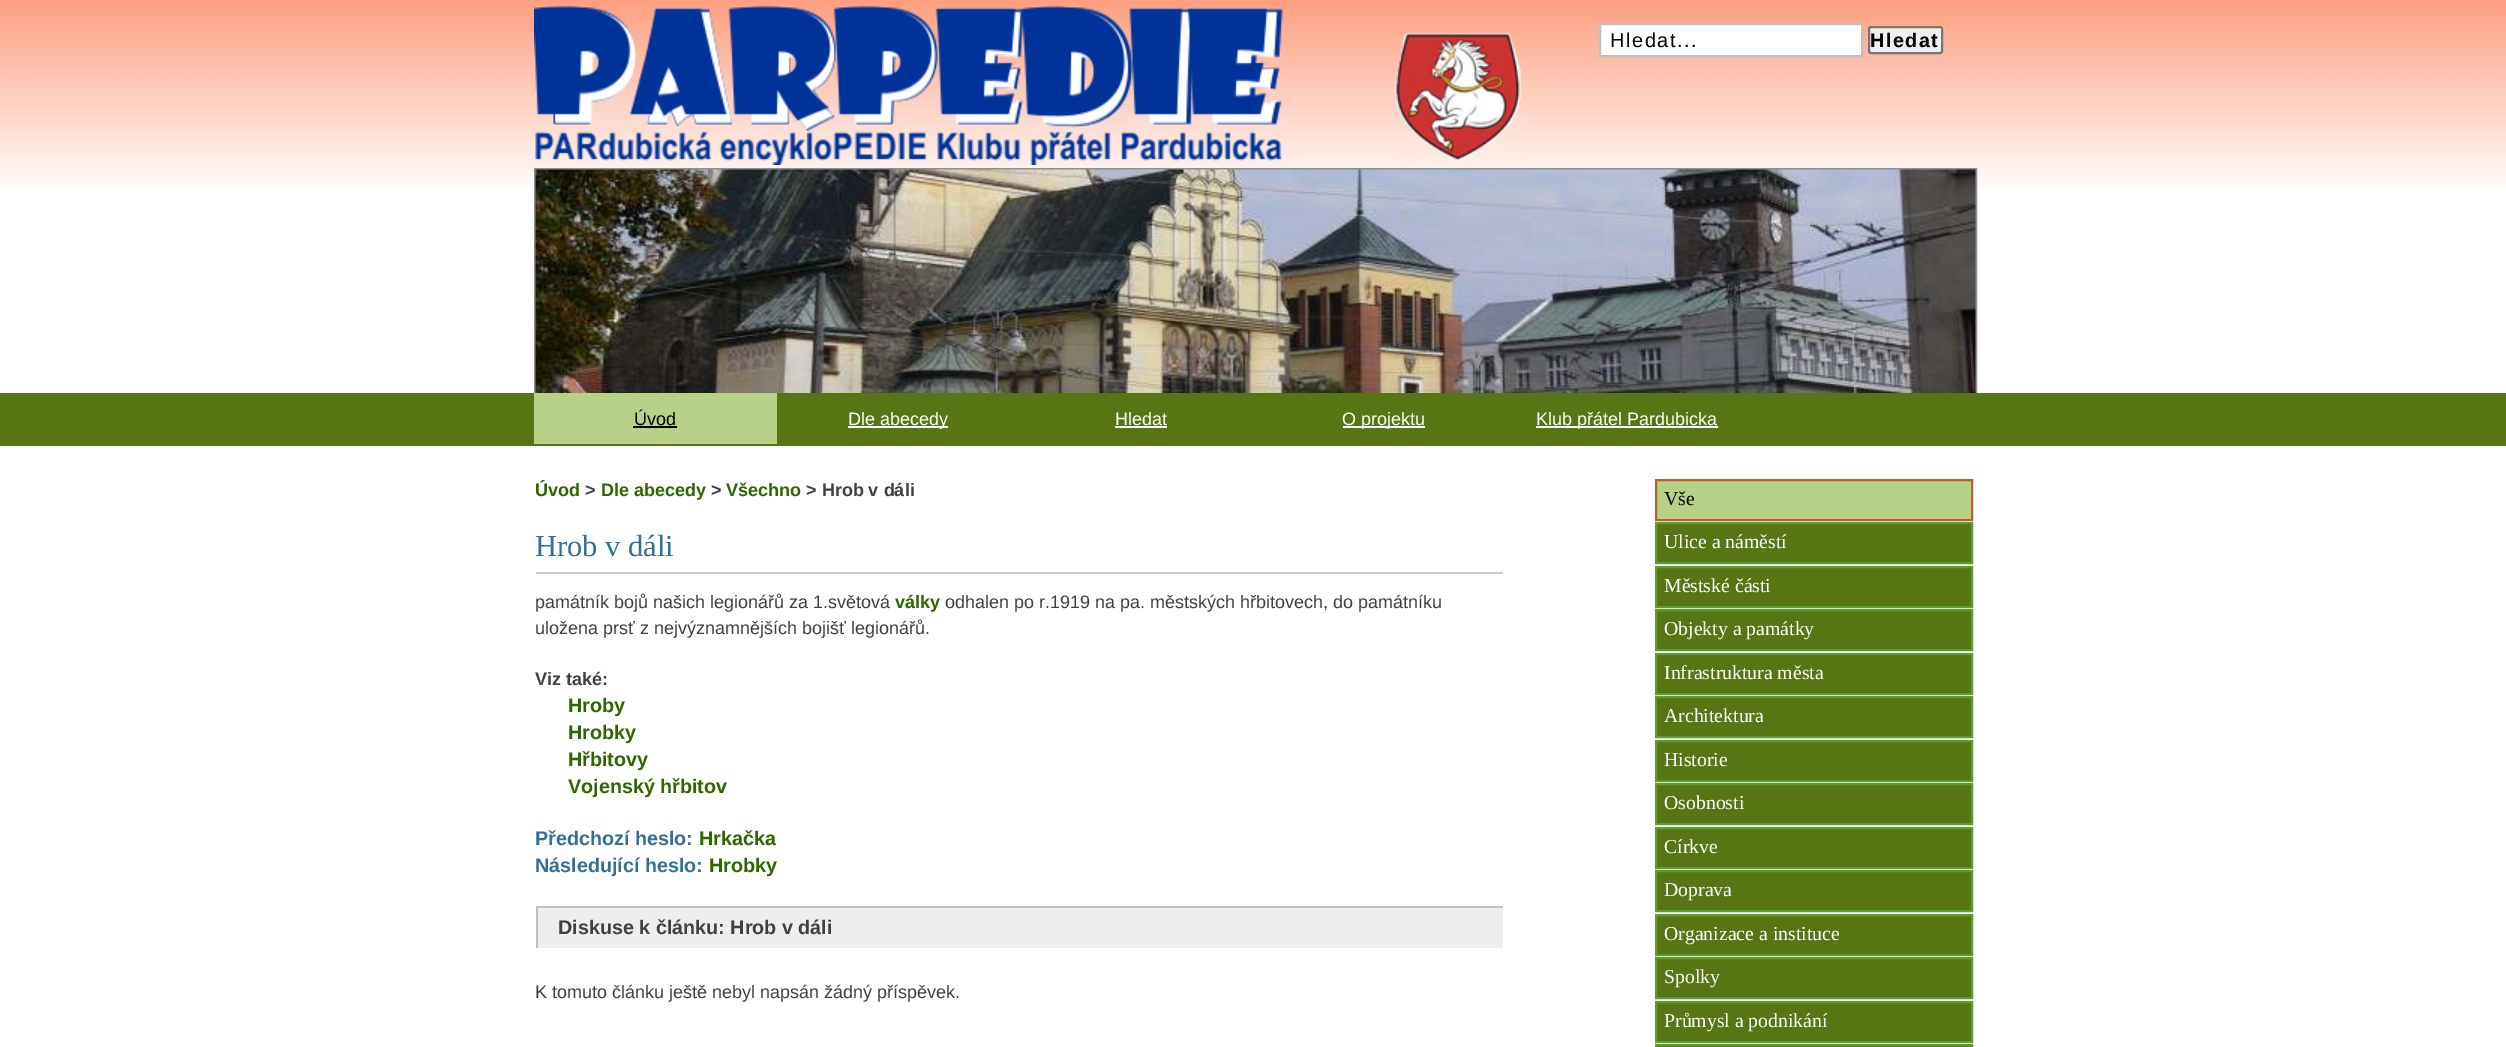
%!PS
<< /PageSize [2506 1047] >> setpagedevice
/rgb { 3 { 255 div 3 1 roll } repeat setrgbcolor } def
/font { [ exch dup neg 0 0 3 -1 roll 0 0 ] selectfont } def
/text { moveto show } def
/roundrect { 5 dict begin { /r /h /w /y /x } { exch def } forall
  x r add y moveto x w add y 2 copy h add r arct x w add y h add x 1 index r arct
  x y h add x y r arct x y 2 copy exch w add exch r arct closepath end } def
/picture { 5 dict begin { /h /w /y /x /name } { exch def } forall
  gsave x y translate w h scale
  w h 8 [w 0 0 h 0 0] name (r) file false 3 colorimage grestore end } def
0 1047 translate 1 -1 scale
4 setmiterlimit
255 255 255 rgb
0 0 2506 1047 rectfill
(img_01.rgb) 0 0 2506 189 picture
(img_02.rgb) 534 3 749 162 picture
(img_03.rgb) 1392 32 132 130 picture
1600 24 moveto 262 0 rlineto 0 32 rlineto -262 0 rlineto closepath gsave fill grestore
192 192 192 rgb
2 setlinewidth
stroke
239 239 239 rgb
1869 27 73 26 2 roundrect gsave fill grestore
118 118 118 rgb
stroke
87 118 19 rgb
0 393 2506 53 rectfill
gsave
534 168 1800 225 rectclip
144 144 144 rgb
535 169 1441 226 rectstroke
grestore
(img_04.rgb) 535 169 1441 224 picture
183 209 134 rgb
534 393 243 51 rectfill
0 0 0 rgb
633 426 44 2 rectfill
255 255 255 rgb
848 426 100 2 rectfill
1115 426 52 2 rectfill
1343 426 82 2 rectfill
1536 426 182 2 rectfill
204 204 204 rgb
536 572 967 2 rectfill
238 238 238 rgb
538 908 965 40 rectfill
192 192 192 rgb
536 906 967 2 rectfill
536 906 2 42 rectfill
183 209 134 rgb
1656 480 moveto 316 0 rlineto 0 40 rlineto -316 0 rlineto closepath gsave fill grestore
190 96 45 rgb
stroke
87 118 19 rgb
1656 523 moveto 316 0 rlineto 0 40 rlineto -316 0 rlineto closepath gsave fill grestore
96 155 49 rgb
stroke
87 118 19 rgb
1656 567 moveto 316 0 rlineto 0 40 rlineto -316 0 rlineto closepath gsave fill grestore
96 155 49 rgb
stroke
87 118 19 rgb
1656 610 moveto 316 0 rlineto 0 40 rlineto -316 0 rlineto closepath gsave fill grestore
96 155 49 rgb
stroke
87 118 19 rgb
1656 654 moveto 316 0 rlineto 0 40 rlineto -316 0 rlineto closepath gsave fill grestore
96 155 49 rgb
stroke
87 118 19 rgb
1656 697 moveto 316 0 rlineto 0 40 rlineto -316 0 rlineto closepath gsave fill grestore
96 155 49 rgb
stroke
87 118 19 rgb
1656 741 moveto 316 0 rlineto 0 40 rlineto -316 0 rlineto closepath gsave fill grestore
96 155 49 rgb
stroke
87 118 19 rgb
1656 784 moveto 316 0 rlineto 0 40 rlineto -316 0 rlineto closepath gsave fill grestore
96 155 49 rgb
stroke
87 118 19 rgb
1656 828 moveto 316 0 rlineto 0 40 rlineto -316 0 rlineto closepath gsave fill grestore
96 155 49 rgb
stroke
87 118 19 rgb
1656 871 moveto 316 0 rlineto 0 40 rlineto -316 0 rlineto closepath gsave fill grestore
96 155 49 rgb
stroke
87 118 19 rgb
1656 915 moveto 316 0 rlineto 0 40 rlineto -316 0 rlineto closepath gsave fill grestore
96 155 49 rgb
stroke
87 118 19 rgb
1656 958 moveto 316 0 rlineto 0 40 rlineto -316 0 rlineto closepath gsave fill grestore
96 155 49 rgb
stroke
87 118 19 rgb
1656 1002 moveto 316 0 rlineto 0 40 rlineto -316 0 rlineto closepath gsave fill grestore
96 155 49 rgb
stroke
87 118 19 rgb
1656 1045 moveto 316 0 rlineto 0 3 rlineto -316 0 rlineto closepath gsave fill grestore
96 155 49 rgb
stroke
/LiberationSans-Regular 20 font
0 0 0 rgb
1610 47 moveto 1.5 0 (Hledat...) ashow
/LiberationSans-Bold 19.75 font
1870 47 moveto 1.5 0 (Hledat) ashow
/LiberationSans-Regular 18 font
(Úvod) 634 425 text
255 255 255 rgb
(Dle abecedy) 848 425 text
(Hledat) 1115 425 text
(O projektu) 1342 425 text
(Klub přátel Pardubicka) 1536 425 text
/LiberationSans-Bold 18 font
46 102 0 rgb
(Úvod) 535 496 text
64 64 64 rgb
(>) 585 496 text
46 102 0 rgb
(Dle abecedy) 601 496 text
64 64 64 rgb
(>) 711 496 text
46 102 0 rgb
(Všechno) 726 496 text
64 64 64 rgb
(> Hrob v dáli) 806 496 text
/LiberationSerif-Regular 30.5 font
51 112 152 rgb
(Hrob v dáli) 535 556 text
/LiberationSans-Regular 18 font
64 64 64 rgb
(památník bojů našich legionářů za 1.světová) 535 608 text
/LiberationSans-Bold 18 font
46 102 0 rgb
(války) 895 608 text
/LiberationSans-Regular 18 font
64 64 64 rgb
(odhalen po r.1919 na pa. městských hřbitovech, do památníku) 945 608 text
(uložena prsť z nejvýznamnějších bojišť legionářů.) 535 634 text
/LiberationSans-Bold 18 font
(Viz také:) 535 685 text
/LiberationSans-Bold 19.75 font
46 102 0 rgb
(Hroby) 568 712 text
(Hrobky) 568 739 text
(Hřbitovy) 568 766 text
(Vojenský hřbitov) 568 793 text
51 112 152 rgb
(Předchozí heslo:) 535 845 text
46 102 0 rgb
(Hrkačka) 699 845 text
51 112 152 rgb
(Následující heslo:) 535 872 text
46 102 0 rgb
(Hrobky) 709 872 text
64 64 64 rgb
(Diskuse k článku: Hrob v dáli) 558 934 text
/LiberationSans-Regular 18 font
(K tomuto článku ještě nebyl napsán žádný příspěvek.) 535 998 text
/LiberationSerif-Regular 19.75 font
0 0 0 rgb
(Vše) 1664 505 text
255 255 255 rgb
(Ulice a náměstí) 1664 548 text
(Městské části) 1664 592 text
(Objekty a památky) 1664 635 text
(Infrastruktura města) 1664 679 text
(Architektura) 1664 722 text
(Historie) 1664 766 text
(Osobnosti) 1664 809 text
(Církve) 1664 853 text
(Doprava) 1664 896 text
(Organizace a instituce) 1664 940 text
(Spolky) 1664 983 text
(Průmysl a podnikání) 1664 1027 text
showpage
